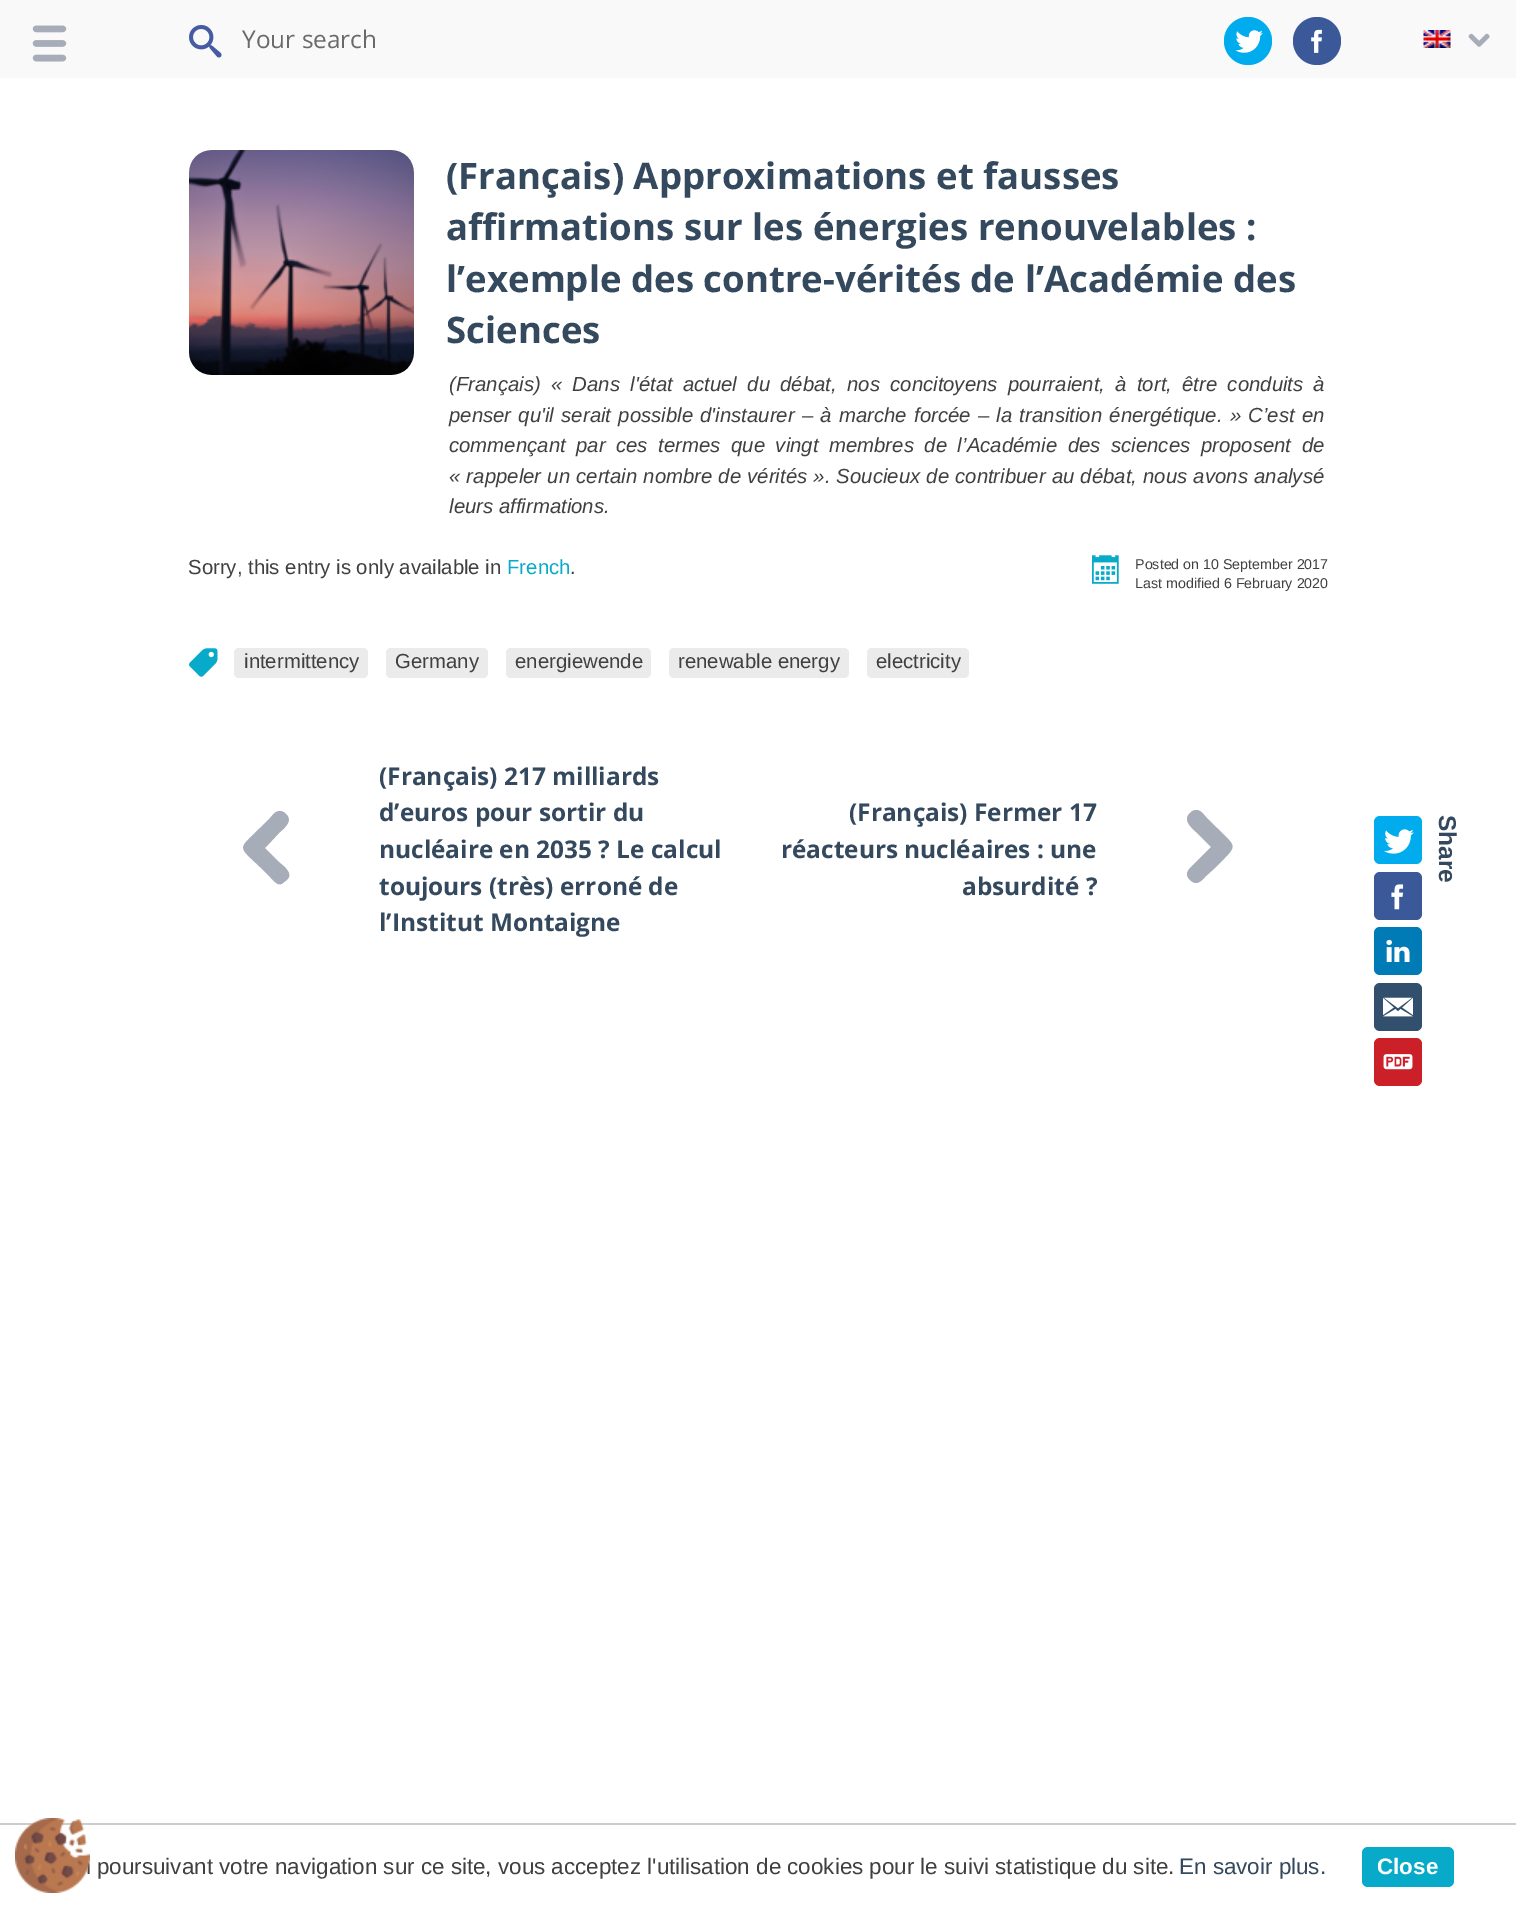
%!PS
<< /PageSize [1516 1907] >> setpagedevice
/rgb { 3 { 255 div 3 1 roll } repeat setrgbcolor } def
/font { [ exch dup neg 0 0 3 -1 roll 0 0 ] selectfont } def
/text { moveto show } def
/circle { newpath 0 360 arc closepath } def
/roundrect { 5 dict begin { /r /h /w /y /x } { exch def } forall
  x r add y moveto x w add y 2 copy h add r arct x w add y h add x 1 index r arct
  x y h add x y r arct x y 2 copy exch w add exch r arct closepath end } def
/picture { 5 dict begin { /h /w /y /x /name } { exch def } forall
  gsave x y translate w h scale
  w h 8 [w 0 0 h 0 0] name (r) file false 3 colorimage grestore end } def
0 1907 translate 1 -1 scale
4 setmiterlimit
255 255 255 rgb
0 0 1516 1907 rectfill
249 249 249 rgb
0 0 1516 78 rectfill
(img_01.rgb) 32 25 35 37 picture
(img_02.rgb) 189 25 33 33 picture
0 172 237 rgb
1248 41 24 circle fill
(img_03.rgb) 1235 30 28 23 picture
59 89 152 rgb
1317 41 24 circle fill
(img_04.rgb) 1311 29 11 24 picture
(img_05.rgb) 1423 30 28 18 picture
(img_06.rgb) 1468 33 22 14 picture
(img_07.rgb) 189 150 225 225 picture
(img_08.rgb) 1092 555 27 29 picture
(img_09.rgb) 189 648 29 29 picture
235 235 235 rgb
234 648 134 30 5 roundrect fill
386 648 102 30 5 roundrect fill
506 648 145 30 5 roundrect fill
669 648 180 30 5 roundrect fill
867 648 102 30 5 roundrect fill
167 173 184 rgb
280 811 moveto -5 0 -7 4 -10 7 rcurveto -10 10 rlineto -22 22 -23 17 0 39 rcurveto 10 10 rlineto 4 4 9 11 14 5 rcurveto 2 -1 4 -3 5 -5 rcurveto 2 -6 -7 -12 -10 -15 rcurveto -14 -14 rlineto 14 -15 rlineto 4 -4 14 -11 8 -18 rcurveto -2 -2 -4 -4 -7 -4 rcurveto closepath fill
1196 810 moveto -3 0 -5 2 -7 4 rcurveto -6 7 3 14 7 18 rcurveto 15 15 rlineto -18 18 rlineto -5 5 -9 9 -3 15 rcurveto 2 2 4 3 6 3 rcurveto 4 0 7 -4 10 -7 rcurveto 10 -9 rlineto 22 -23 22 -18 0 -40 rcurveto -10 -10 rlineto -3 -3 -5 -7 -10 -7 rcurveto closepath fill
0 172 237 rgb
1374 816 48 48 6 roundrect fill
(img_10.rgb) 1384 829 30 25 picture
59 89 152 rgb
1374 872 48 48 6 roundrect fill
(img_11.rgb) 1391 884 13 26 picture
0 123 182 rgb
1374 927 48 48 6 roundrect fill
(img_12.rgb) 1386 939 24 23 picture
50 80 109 rgb
1374 983 48 48 6 roundrect fill
(img_13.rgb) 1383 997 30 20 picture
203 32 39 rgb
1374 1038 48 48 6 roundrect fill
(img_14.rgb) 1383 1054 30 16 picture
204 204 204 rgb
0 1823 1516 2 rectfill
7 171 201 rgb
1362 1847 92 40 6 roundrect fill
(img_15.rgb) 15 1818 75 75 picture
/OpenSans-Regular 24.4 font
106 106 106 rgb
(Your search) 242 48 text
/LiberationSans-Regular 20.35 font
64 64 64 rgb
(Sorry, this entry is only available in) 188 574 text
7 171 201 rgb
(French) 507 574 text
64 64 64 rgb
(.) 570 574 text
/OpenSans-Bold 36.6 font
52 73 94 rgb
(\(Français\) Approximations et fausses) 446 189 text
(affirmations sur les énergies renouvelables :) 446 240 text
(l’exemple des contre-vérités de l’Académie des) 446 292 text
(Sciences) 446 343 text
/LiberationSans-Italic 20.35 font
64 64 64 rgb
449 391 moveto 4.6 0 32 (\(Français\) « Dans l'état actuel du débat, nos concitoyens pourraient, à tort, être conduits à) widthshow
449 422 moveto 1.6 0 32 (penser qu'il serait possible d'instaurer – à marche forcée – la transition énergétique. » C’est en) widthshow
449 452 moveto 4.9 0 32 (commençant par ces termes que vingt membres de l’Académie des sciences proposent de) widthshow
449 483 moveto 0.5 0 32 (« rappeler un certain nombre de vérités ». Soucieux de contribuer au débat, nous avons analysé) widthshow
(leurs affirmations.) 449 513 text
/LiberationSans-Regular 14.25 font
(Posted on 10 September 2017) 1135 569 text
(Last modified 6 February 2020) 1135 588 text
/LiberationSans-Regular 20.35 font
(intermittency) 244 668 text
(Germany) 395 668 text
(energiewende) 515 668 text
(renewable energy) 678 668 text
(electricity) 876 668 text
/OpenSans-Bold 24.4 font
52 73 94 rgb
(\(Français\) 217 milliards) 379 785 text
(d’euros pour sortir du) 379 821 text
(nucléaire en 2035 ? Le calcul) 379 858 text
(toujours \(très\) erroné de) 379 895 text
(l’Institut Montaigne) 379 931 text
(\(Français\) Fermer 17) 849 821 text
(réacteurs nucléaires : une) 781 858 text
(absurdité ?) 962 895 text
/LiberationSans-Bold 24.4 font
gsave 1439 815 translate 90 rotate 0 0 moveto (Share) show grestore
/LiberationSans-Regular 22.4 font
64 64 64 rgb
(poursuivant votre navigation sur ce site, vous acceptez l'utilisation de cookies pour le suivi statistique du site.) 97 1874 text
52 73 94 rgb
(En savoir plus.) 1179 1874 text
/LiberationSans-Bold 22.4 font
255 255 255 rgb
(Close) 1377 1874 text
showpage
